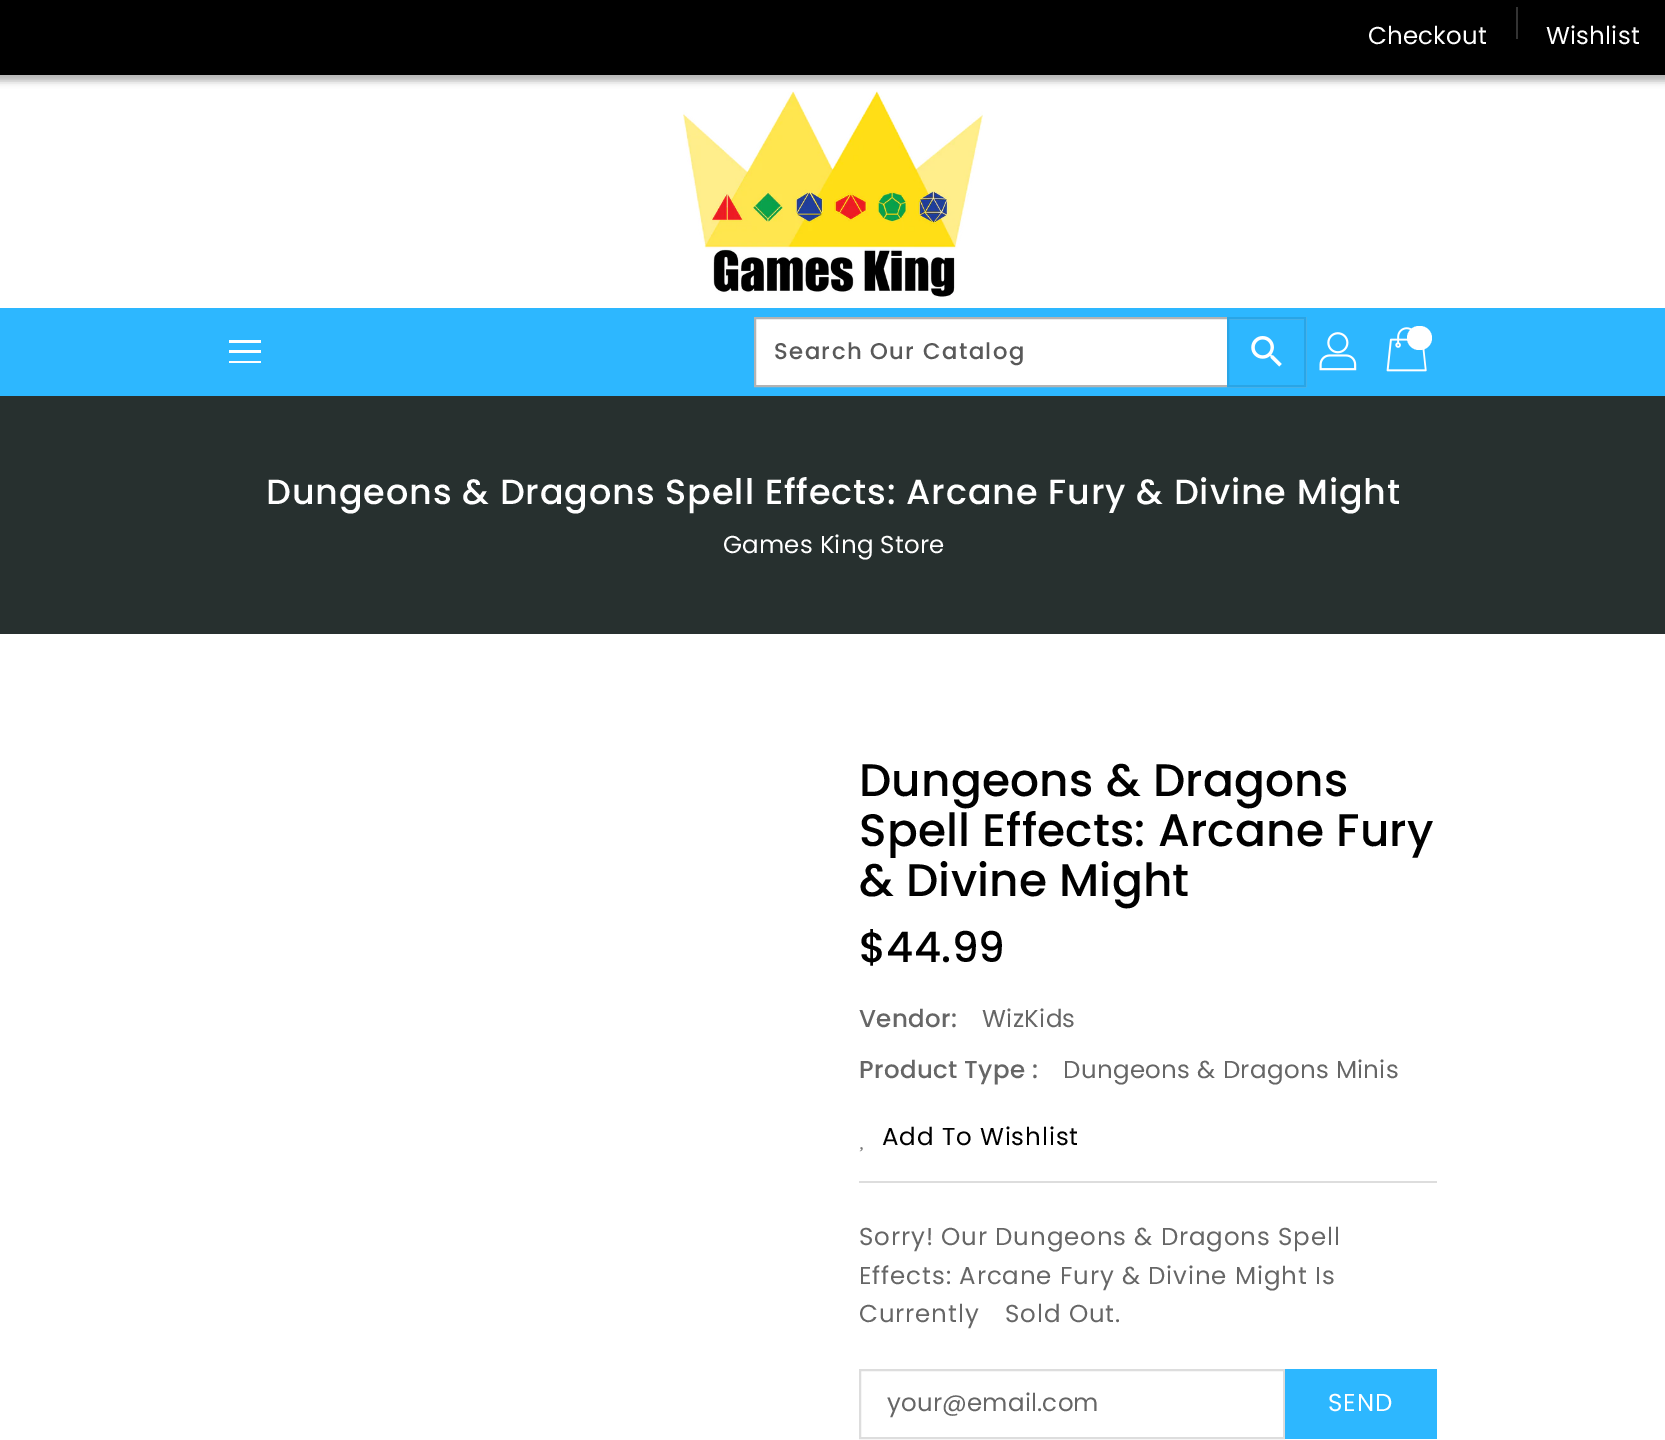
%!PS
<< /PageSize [1665 1440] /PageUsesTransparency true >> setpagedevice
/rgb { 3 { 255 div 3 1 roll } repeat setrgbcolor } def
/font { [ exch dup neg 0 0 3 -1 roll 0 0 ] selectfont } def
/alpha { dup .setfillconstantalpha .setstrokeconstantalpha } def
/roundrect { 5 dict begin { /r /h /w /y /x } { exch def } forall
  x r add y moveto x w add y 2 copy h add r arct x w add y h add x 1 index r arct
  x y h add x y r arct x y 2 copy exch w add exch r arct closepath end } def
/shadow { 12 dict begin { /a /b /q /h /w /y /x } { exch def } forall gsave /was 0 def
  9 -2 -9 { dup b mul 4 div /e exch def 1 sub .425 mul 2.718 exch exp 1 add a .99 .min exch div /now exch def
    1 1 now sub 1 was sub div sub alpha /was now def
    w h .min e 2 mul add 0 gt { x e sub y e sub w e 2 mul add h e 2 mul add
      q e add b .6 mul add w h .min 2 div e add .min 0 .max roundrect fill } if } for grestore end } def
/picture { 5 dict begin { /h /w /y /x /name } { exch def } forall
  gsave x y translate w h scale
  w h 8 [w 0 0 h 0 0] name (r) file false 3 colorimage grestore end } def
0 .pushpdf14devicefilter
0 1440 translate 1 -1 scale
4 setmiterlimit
255 255 255 rgb
0 0 1665 1440 rectfill
0 0 0 rgb
-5 -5 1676 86 0 3.5 0.3 shadow
0 0 1665 75 rectfill
51 51 51 rgb
1516 7 2 32 rectfill
(img_01.rgb) 683 91 300 206 picture
45 183 255 rgb
0 308 1665 88 rectfill
255 255 255 rgb
229 340 32 3 rectfill
229 350 32 3 rectfill
229 361 32 2 rectfill
756 319 471 66 rectfill
179 179 179 rgb
2 setlinewidth
755 318 550 68 rectstroke
41 165 230 rgb
1228 318 77 68 rectstroke
(img_02.rgb) 1251 336 31 31 picture
(img_03.rgb) 1319 332 38 39 picture
(img_04.rgb) 1386 327 41 45 picture
255 255 255 rgb
1407 326 25 24 12 roundrect fill
39 48 47 rgb
0 396 1665 238 rectfill
(img_05.rgb) 859 1147 4 5 picture
221 221 221 rgb
859 1181 578 2 rectfill
860 1370 424 68 rectstroke
45 183 255 rgb
1285 1369 152 70 rectfill
/Poppins-Regular 24.5 font
255 255 255 rgb
1368 44 moveto 0.2 0 (Checkout) ashow
1546 44 moveto 0.2 0 (Wishlist) ashow
/Poppins-Medium 22.75 font
89 89 89 rgb
774 359 moveto 1.4 0 (Search Our Catalog) ashow
/Poppins-Medium 35 font
255 255 255 rgb
266 504 moveto 0.88 0 (Dungeons & Dragons Spell Effects: Arcane Fury & Divine Might) ashow
/Poppins-Regular 24.5 font
723 553 moveto 0.2 0 (Games King Store) ashow
/Poppins-Medium 45.5 font
0 0 0 rgb
859 796 moveto 0.2 0 (Dungeons & Dragons) ashow
859 846 moveto 0.2 0 (Spell Effects: Arcane Fury) ashow
859 896 moveto 0.2 0 (& Divine Might) ashow
/Poppins-Medium 42 font
859 962 moveto 0.2 0 ($44.99) ashow
/Poppins-Medium 24.5 font
102 102 102 rgb
859 1027 moveto 0.35 0 (Vendor:) ashow
/Poppins-Regular 24.5 font
982 1027 moveto 0.35 0 (WizKids) ashow
/Poppins-Medium 24.5 font
859 1078 moveto 0.35 0 (Product Type :) ashow
/Poppins-Regular 24.5 font
1063 1078 moveto 0.35 0 (Dungeons & Dragons Minis) ashow
0 0 0 rgb
882 1145 moveto 0.88 0 (Add To Wishlist) ashow
102 102 102 rgb
859 1245 moveto 0.88 0 (Sorry! Our Dungeons & Dragons Spell) ashow
859 1284 moveto 0.88 0 (Effects: Arcane Fury & Divine Might Is) ashow
859 1322 moveto 0.88 0 (Currently) ashow
1005 1322 moveto 0.88 0 (Sold Out.) ashow
887 1411 moveto 0.2 0 (your@email.com) ashow
255 255 255 rgb
1328 1411 moveto 0.88 0 (SEND) ashow
.poppdf14devicefilter showpage
